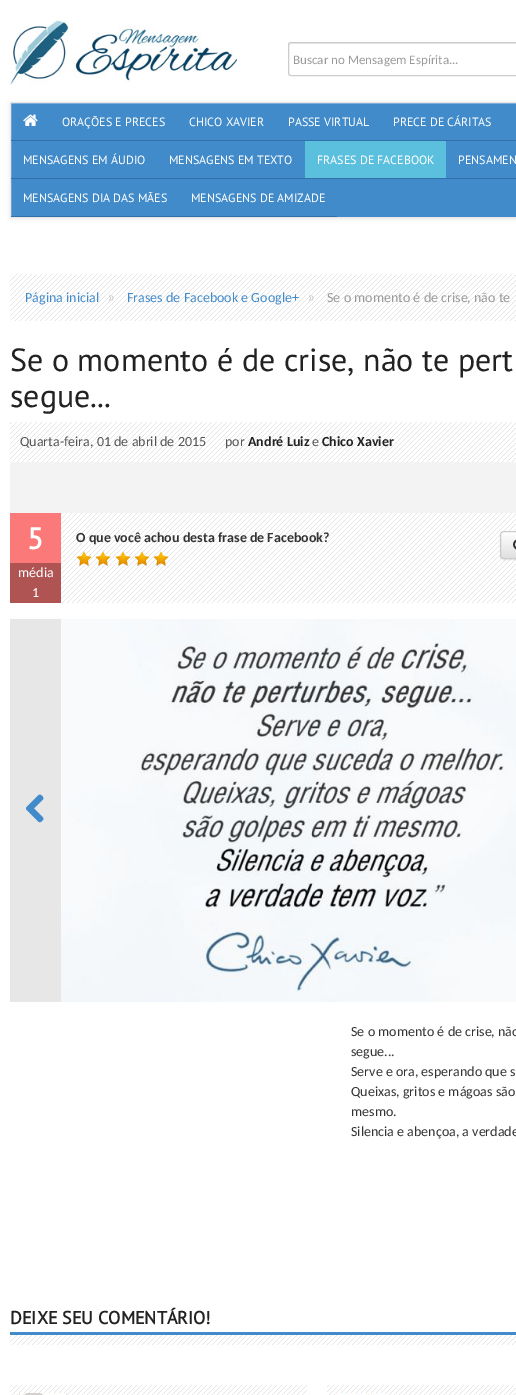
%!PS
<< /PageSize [516 1395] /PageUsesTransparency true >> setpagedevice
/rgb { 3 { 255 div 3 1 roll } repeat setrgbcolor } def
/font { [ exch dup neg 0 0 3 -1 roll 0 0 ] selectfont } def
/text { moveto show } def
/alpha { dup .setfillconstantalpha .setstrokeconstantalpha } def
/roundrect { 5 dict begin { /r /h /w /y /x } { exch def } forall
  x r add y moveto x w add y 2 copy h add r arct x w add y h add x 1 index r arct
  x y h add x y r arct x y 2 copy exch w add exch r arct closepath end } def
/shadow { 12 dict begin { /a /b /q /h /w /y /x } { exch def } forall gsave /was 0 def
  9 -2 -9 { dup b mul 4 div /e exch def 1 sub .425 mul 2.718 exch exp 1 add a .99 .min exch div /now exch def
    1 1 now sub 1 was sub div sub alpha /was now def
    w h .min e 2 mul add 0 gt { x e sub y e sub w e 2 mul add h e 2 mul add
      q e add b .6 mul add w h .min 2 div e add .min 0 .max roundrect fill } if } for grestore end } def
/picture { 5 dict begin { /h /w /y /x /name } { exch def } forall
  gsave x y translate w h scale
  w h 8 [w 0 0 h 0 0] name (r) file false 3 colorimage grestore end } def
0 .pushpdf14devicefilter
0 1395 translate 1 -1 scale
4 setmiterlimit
255 255 255 rgb
0 0 516 1395 rectfill
(img_01.rgb) 10 20 227 65 picture
236 236 236 rgb
291 44 moveto 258 0 rlineto 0 -1 rlineto -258 0 rlineto -2 0 -2 2 -2 3 rcurveto 0 -1 1 -2 2 -2 rcurveto closepath fill
204 204 204 rgb
291 42.5 moveto 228.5 0 rlineto 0 33 rlineto -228.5 0 rlineto -1.5 0 -2.5 -1 -2.5 -2.5 rcurveto 0 -28 rlineto 0 -1.5 1 -2.5 2.5 -2.5 rcurveto closepath stroke
0 0 0 rgb
10 103 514 116 0 2.5 0.07 shadow
66 139 202 rgb
11 104 505 113 rectfill
94 156 210 rgb
11 103 505 1 rectfill
231 231 231 rgb
10.5 102.5 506 115 rectstroke
48 113 169 rgb
11 140 505 1 rectfill
(img_02.rgb) 23 114 15 12 picture
11 178 505 1 rectfill
91 192 222 rgb
305 141 141 37 rectfill
48 113 169 rgb
11 216 326 1 rectfill
(img_03.rgb) 10 274 506 47 picture
(img_04.rgb) 10 422 506 40 picture
243 243 243 rgb
10 462 506 51 rectfill
(img_05.rgb) 61 513 455 90 picture
252 121 121 rgb
10 513 51 50 rectfill
175 83 83 rgb
10 563 51 40 rectfill
(img_06.rgb) 76 551 16 15 picture
(img_07.rgb) 95 551 16 15 picture
(img_07.rgb) 115 551 16 15 picture
(img_08.rgb) 134 551 16 15 picture
(img_09.rgb) 153 551 16 15 picture
0 0 0 rgb
500 532 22 28 4 0.5 0.07 shadow
gsave
504 531 moveto 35 0 rlineto 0 28 rlineto -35 0 rlineto -2 0 -4 -2 -4 -4 rcurveto 0 -20 rlineto 0 -2 2 -4 4 -4 rcurveto closepath clip newpath
gsave 500 532 moveto 16 0 rlineto 0 26 rlineto -16 0 rlineto closepath clip newpath
<< /ShadingType 2 /ColorSpace /DeviceRGB /Coords [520 532 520 558] /Extend [true true] /Function << /FunctionType 2 /Domain [0 1] /C0 [1 1 1] /C1 [0.878 0.878 0.878] /N 1 >> >> shfill grestore
grestore
204 204 204 rgb
504 531.5 moveto 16.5 0 rlineto 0 27 rlineto -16.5 0 rlineto -2 0 -3.5 -1.5 -3.5 -3.5 rcurveto 0 -20 rlineto 0 -2 1.5 -3.5 3.5 -3.5 rcurveto closepath stroke
(img_10.rgb) 513 539 3 11 picture
231 231 231 rgb
10 619 51 383 rectfill
(img_11.rgb) 26 794 18 29 picture
(img_12.rgb) 61 619 455 383 picture
(img_13.rgb) 10 1335 506 10 picture
66 139 202 rgb
10 1332 506 3 rectfill
(img_14.rgb) 10 1385 297 10 picture
(img_15.rgb) 18 1393 50 2 picture
(img_16.rgb) 327 1385 189 10 picture
(img_17.rgb) 335 1393 50 2 picture
/Carlito-Regular 13 font
153 153 153 rgb
(Buscar no Mensagem Espírita...) 293 64 text
/PTSans-Regular 12 font
255 255 255 rgb
(ORAÇÕES E PRECES) 62 126 text
(CHICO XAVIER) 189 126 text
(PASSE VIRTUAL) 288 126 text
(PRECE DE CÁRITAS) 393 126 text
(MENSAGENS EM ÁUDIO) 23 164 text
(MENSAGENS EM TEXTO) 169 164 text
(FRASES DE FACEBOOK) 317 164 text
(PENSAMEN) 458 164 text
(MENSAGENS DIA DAS MÃES) 23 202 text
(MENSAGENS DE AMIZADE) 191 202 text
/Carlito-Regular 14 font
66 139 202 rgb
(Página inicial) 25 302 text
/Carlito-Regular 16 font
204 204 204 rgb
(») 107 302 text
/Carlito-Regular 14 font
66 139 202 rgb
(Frases de Facebook e Google+) 127 302 text
/Carlito-Regular 16 font
204 204 204 rgb
(») 307 302 text
/Carlito-Regular 14 font
153 153 153 rgb
(Se o momento é de crise, não te) 327 302 text
/PTSans-Regular 32 font
34 34 34 rgb
(Se o momento é de crise, não te pert) 10 371 text
(segue...) 10 407 text
/Carlito-Regular 14 font
85 85 85 rgb
(Quarta-feira, 01 de abril de 2015) 20 446 text
(por) 225 446 text
/Carlito-Bold 14 font
34 34 34 rgb
(André Luiz) 248 446 text
/Carlito-Regular 14 font
85 85 85 rgb
(e) 312 446 text
/Carlito-Bold 14 font
34 34 34 rgb
(Chico Xavier) 322 446 text
/PTSans-Bold 30 font
255 255 255 rgb
(5) 27 549 text
/Carlito-Regular 14 font
(média) 18 577 text
(1) 32 597 text
/Carlito-Bold 14 font
51 51 51 rgb
(O que você achou desta frase de Facebook?) 76 542 text
/Carlito-Regular 14 font
(Se o momento é de crise, não) 351 1036 text
(segue...) 351 1056 text
(Serve e ora, esperando que s) 351 1076 text
(Queixas, gritos e mágoas são) 351 1096 text
(mesmo.) 351 1116 text
(Silencia e abençoa, a verdade) 351 1136 text
/PTSans-Bold 18 font
34 34 34 rgb
(DEIXE SEU COMENTÁRIO!) 10 1324 text
.poppdf14devicefilter showpage
